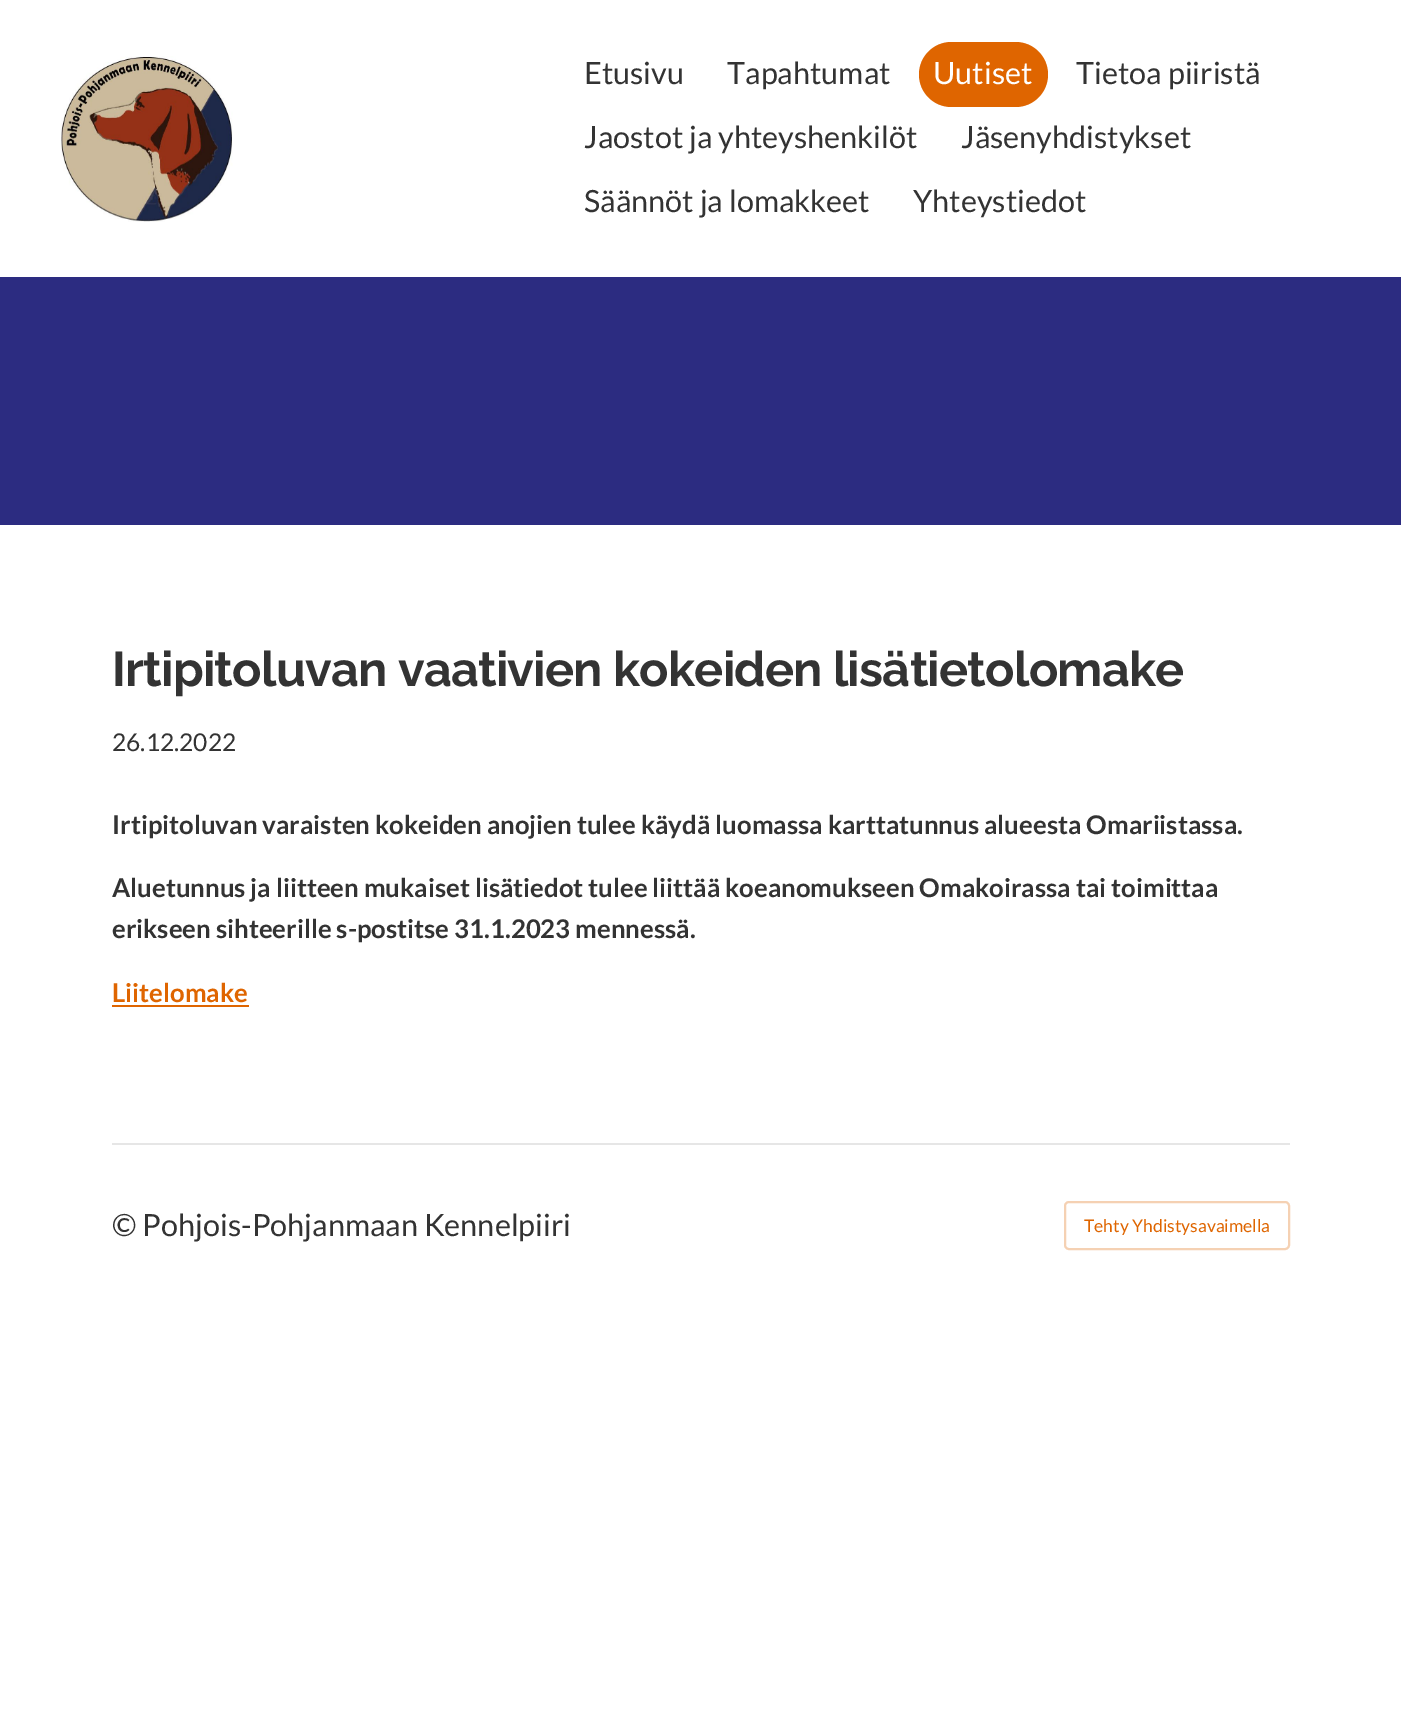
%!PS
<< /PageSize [1401 1724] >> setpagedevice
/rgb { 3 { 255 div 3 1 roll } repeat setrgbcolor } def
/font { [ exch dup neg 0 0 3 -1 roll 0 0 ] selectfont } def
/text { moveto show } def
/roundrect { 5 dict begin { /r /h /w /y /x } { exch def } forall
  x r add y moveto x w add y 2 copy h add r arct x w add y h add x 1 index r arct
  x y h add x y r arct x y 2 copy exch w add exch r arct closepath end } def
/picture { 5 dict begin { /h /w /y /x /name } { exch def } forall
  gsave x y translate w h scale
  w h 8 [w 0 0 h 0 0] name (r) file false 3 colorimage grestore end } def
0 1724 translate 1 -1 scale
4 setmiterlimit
255 255 255 rgb
0 0 1401 1724 rectfill
(img_01.rgb) 60 56 173 166 picture
223 101 0 rgb
919 42 129 65 32.5 roundrect fill
44 44 129 rgb
0 277 1401 248 rectfill
223 101 0 rgb
112 1005 137 2 rectfill
230 230 230 rgb
112 1143 1178 2 rectfill
245 209 179 rgb
2 setlinewidth
1065 1202 224 47 4 roundrect stroke
/Lato-Regular 30.6 font
51 51 51 rgb
(Etusivu) 584 84 text
(Tapahtumat) 727 84 text
255 255 255 rgb
(Uutiset) 933 84 text
51 51 51 rgb
(Tietoa piiristä) 1076 84 text
(Jaostot ja yhteyshenkilöt) 584 148 text
(Jäsenyhdistykset) 961 148 text
(Säännöt ja lomakkeet) 584 212 text
(Yhteystiedot) 913 212 text
/Raleway-Thin 48.6 font
112 686 moveto -0.75 0 (Irtipitoluvan vaativien kokeiden lisätietolomake) ashow
/Lato-Regular 24.5 font
(26.12.2022) 112 751 text
/Lato-Bold 25.75 font
(Irtipitoluvan varaisten kokeiden anojien tulee käydä luomassa karttatunnus alueesta Omariistassa.) 112 834 text
(Aluetunnus ja liitteen mukaiset lisätiedot tulee liittää koeanomukseen Omakoirassa tai toimittaa) 112 897 text
(erikseen sihteerille s-postitse 31.1.2023 mennessä.) 112 938 text
223 101 0 rgb
(Liitelomake) 112 1002 text
/Lato-Regular 30.6 font
51 51 51 rgb
(© Pohjois-Pohjanmaan Kennelpiiri) 112 1236 text
/Lato-Regular 17.5 font
223 101 0 rgb
(Tehty Yhdistysavaimella) 1084 1232 text
showpage
